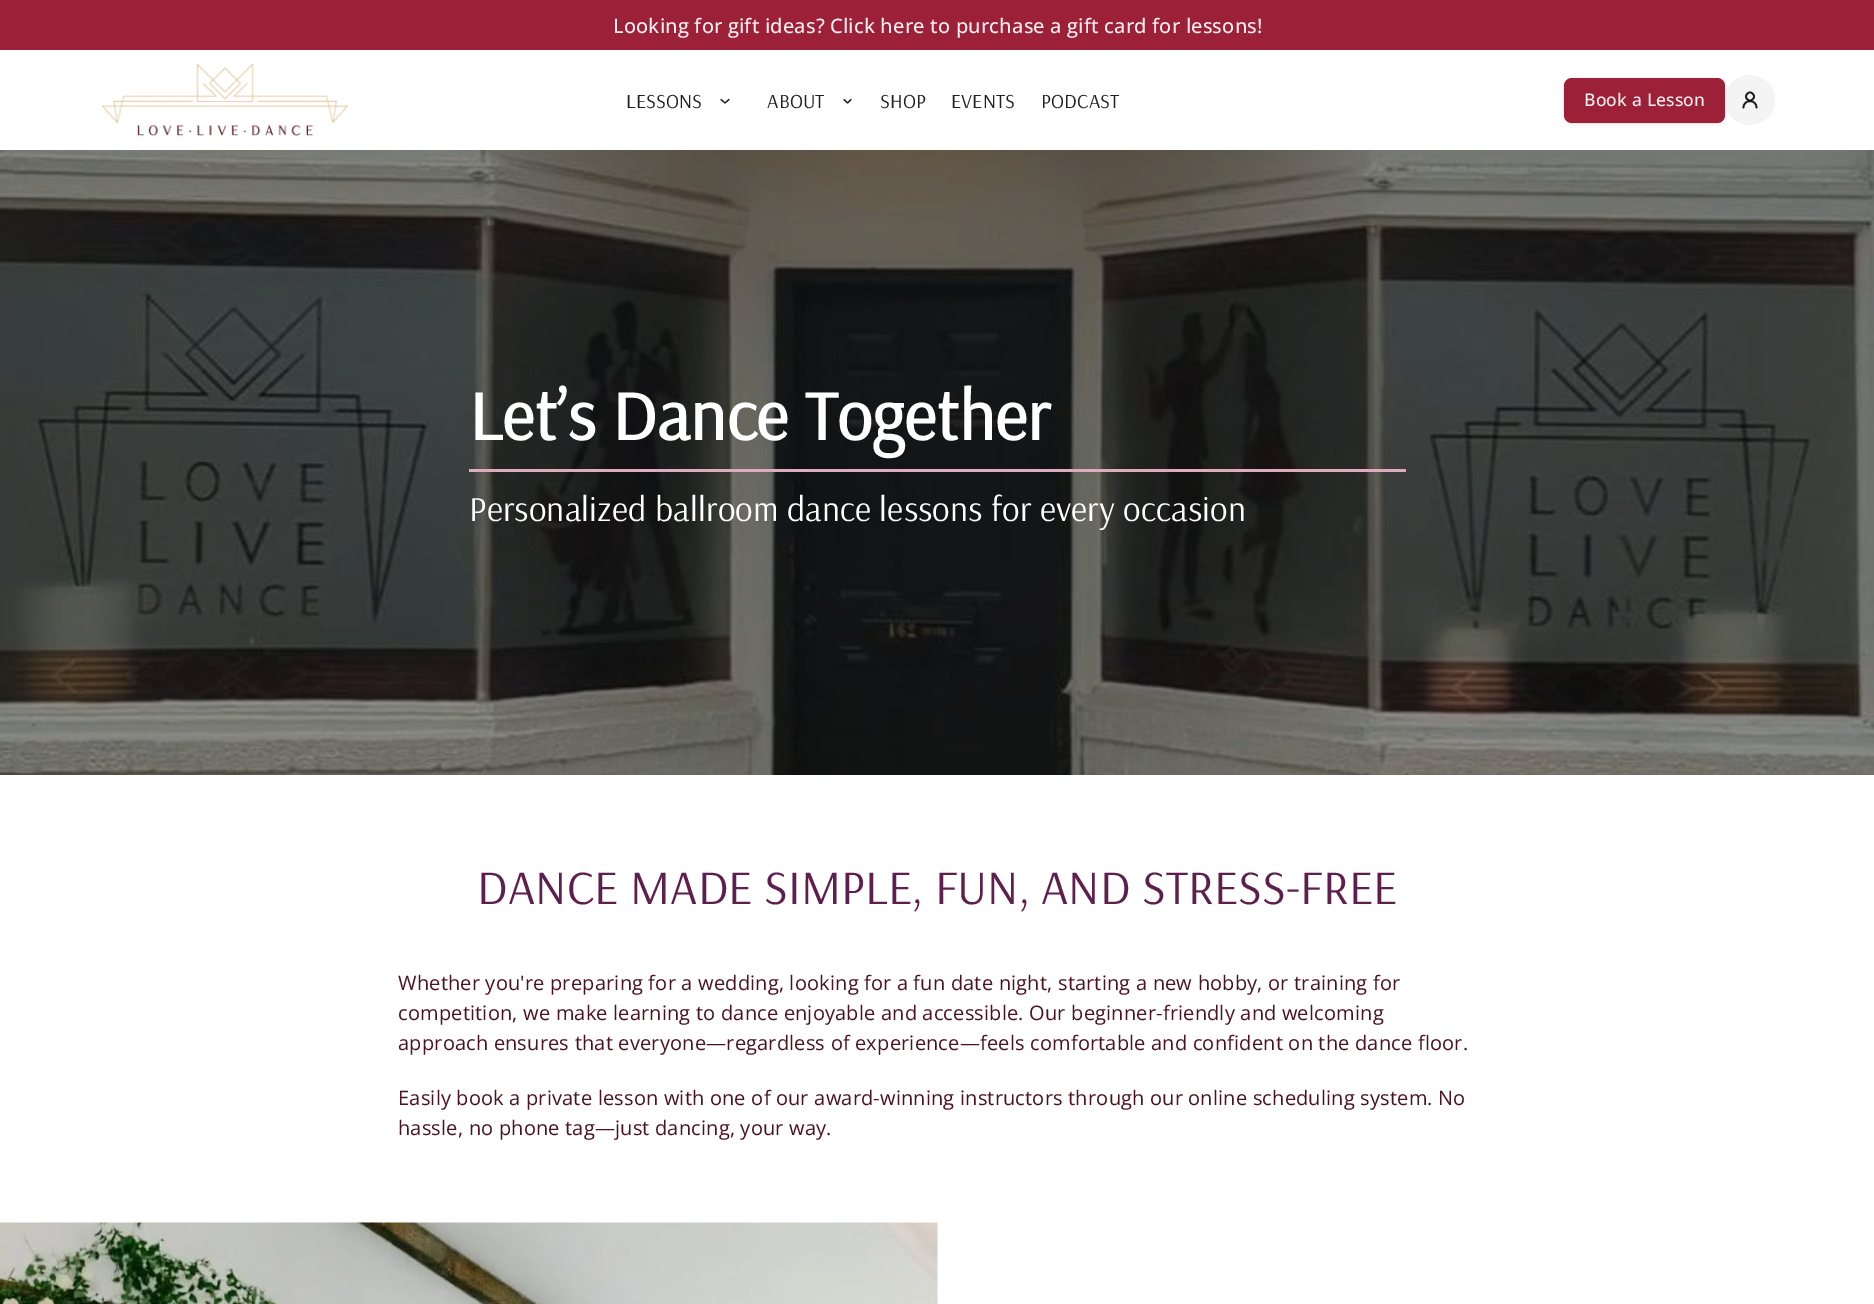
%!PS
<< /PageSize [1874 1304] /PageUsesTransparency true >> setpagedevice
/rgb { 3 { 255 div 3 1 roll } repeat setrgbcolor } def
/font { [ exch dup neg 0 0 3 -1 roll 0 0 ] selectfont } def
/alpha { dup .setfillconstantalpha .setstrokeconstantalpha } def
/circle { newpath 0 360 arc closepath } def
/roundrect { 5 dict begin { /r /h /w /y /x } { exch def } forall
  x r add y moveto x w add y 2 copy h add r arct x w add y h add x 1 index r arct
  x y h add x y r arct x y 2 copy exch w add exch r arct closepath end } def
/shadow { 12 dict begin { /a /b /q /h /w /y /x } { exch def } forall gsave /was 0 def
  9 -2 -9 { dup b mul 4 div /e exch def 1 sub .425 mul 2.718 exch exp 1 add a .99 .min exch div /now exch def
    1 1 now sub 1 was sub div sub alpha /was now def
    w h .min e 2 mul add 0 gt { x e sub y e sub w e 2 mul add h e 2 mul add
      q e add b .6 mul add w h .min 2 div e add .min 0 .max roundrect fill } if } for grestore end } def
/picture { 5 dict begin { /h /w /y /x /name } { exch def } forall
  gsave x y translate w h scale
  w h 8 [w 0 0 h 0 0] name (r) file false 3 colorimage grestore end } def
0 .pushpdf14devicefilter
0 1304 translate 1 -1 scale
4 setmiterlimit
255 255 255 rgb
0 0 1874 1304 rectfill
157 32 57 rgb
0 0 1874 50 rectfill
(img_01.rgb) 102 63 246 74 picture
33 33 33 rgb
1.2 setlinewidth
1 setlinecap
1 setlinejoin
721 99.5 moveto 4 3.5 rlineto 4 -3.5 rlineto stroke
844 99.5 moveto 3.5 3.5 rlineto 3.5 -3.5 rlineto stroke
0 0 0 rgb
1565 80 159 43 6 1 0.1 shadow
1564 79 161 45 8 2 0.1 shadow
157 32 57 rgb
1564 78 161 45 8 roundrect fill
244 244 245 rgb
1750 100 25 circle fill
32 32 32 rgb
1.7 setlinewidth
0 setlinecap
0 setlinejoin
1750 96.5 4 circle stroke
0.87 alpha
0 0 0 rgb
1 setlinecap
1 setlinejoin
1756.5 107.5 moveto 0 -8.5 -13 -8.5 -13 0 rcurveto stroke
1 alpha
(img_02.rgb) 0 150 1874 625 picture
222 172 190 rgb
469 469 937 3 rectfill
(img_03.rgb) 0 1222 938 82 picture
/OpenSans-Medium 20 font
255 241 242 rgb
613 33 moveto 0.19 0 (Looking for gift ideas? Click here to purchase a gift card for lessons!) ashow
/Arsenal-Regular 20 font
33 33 33 rgb
626 108 moveto 0.19 0 (LESSONS) ashow
767 108 moveto 0.19 0 (ABOUT) ashow
880 108 moveto 0.19 0 (SHOP) ashow
951 108 moveto 0.19 0 (EVENTS) ashow
1041 108 moveto 0.19 0 (PODCAST) ashow
/OpenSans-Medium 17.5 font
255 241 242 rgb
1584 106 moveto 0.19 0 (Book a Lesson) ashow
/Arsenal-Bold 70 font
255 255 255 rgb
469 440 moveto 0.19 0 (Let’s Dance Together) ashow
/Arsenal-Regular 35 font
469 521 moveto 0.19 0 (Personalized ballroom dance lessons for every occasion) ashow
/Arsenal-Regular 48 font
95 31 78 rgb
477 904 moveto 0.19 0 (DANCE MADE SIMPLE, FUN, AND STRESS-FREE) ashow
/OpenSans-Regular 20 font
76 18 30 rgb
398 990 moveto 0.19 0 (Whether you're preparing for a wedding, looking for a fun date night, starting a new hobby, or training for) ashow
398 1020 moveto 0.19 0 (competition, we make learning to dance enjoyable and accessible. Our beginner-friendly and welcoming) ashow
398 1050 moveto 0.19 0 (approach ensures that everyone—regardless of experience—feels comfortable and confident on the dance floor.) ashow
398 1105 moveto 0.19 0 (Easily book a private lesson with one of our award-winning instructors through our online scheduling system. No) ashow
398 1135 moveto 0.19 0 (hassle, no phone tag—just dancing, your way.) ashow
.poppdf14devicefilter showpage
